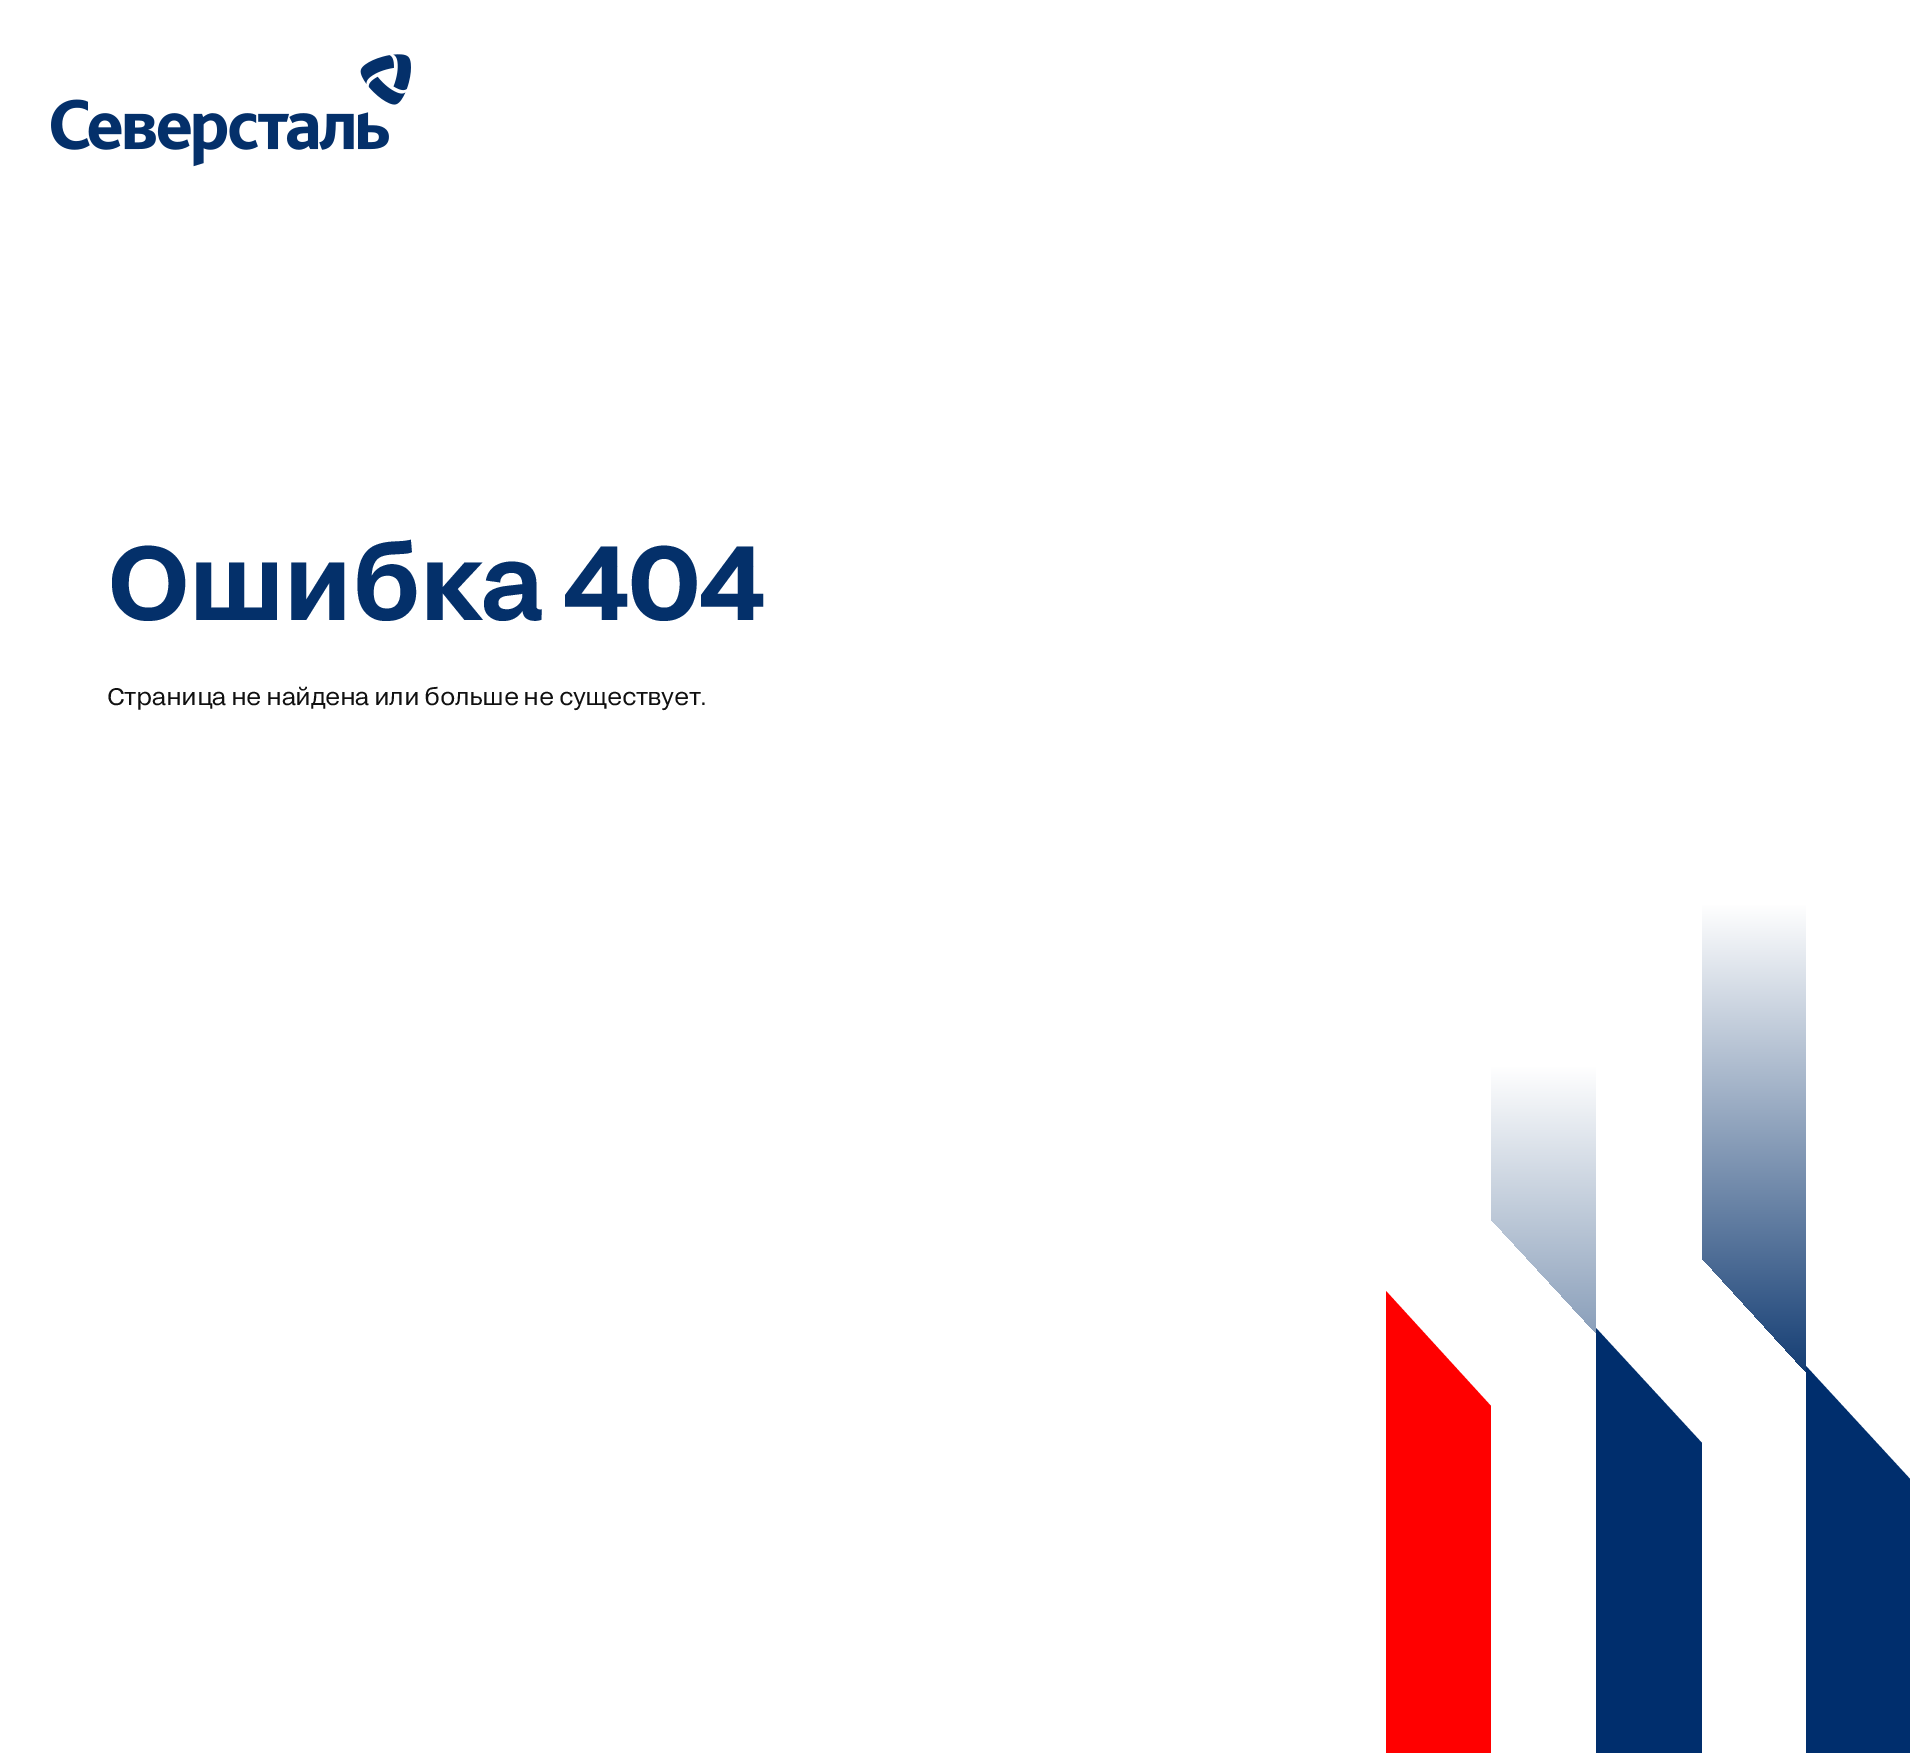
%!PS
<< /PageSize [1910 1753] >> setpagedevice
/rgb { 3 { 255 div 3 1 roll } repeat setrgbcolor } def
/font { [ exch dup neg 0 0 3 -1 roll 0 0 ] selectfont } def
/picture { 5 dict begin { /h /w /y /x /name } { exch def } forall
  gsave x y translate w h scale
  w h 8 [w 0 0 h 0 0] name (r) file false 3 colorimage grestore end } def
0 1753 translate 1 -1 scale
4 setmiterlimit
255 255 255 rgb
0 0 1910 1753 rectfill
(img_01.rgb) 51 54 360 113 picture
255 0 0 rgb
1491 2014 moveto -105 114 rlineto 0 -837 rlineto 105 115 rlineto closepath fill
0 46 109 rgb
1702 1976 moveto -106 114 rlineto 0 -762 rlineto 106 115 rlineto closepath fill
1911 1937 moveto -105 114 rlineto 0 -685 rlineto 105 114 rlineto closepath fill
gsave
1386 647 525 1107 rectclip
gsave 1702 1258 moveto 104 114 rlineto 0 -1297 rlineto -104 115 rlineto closepath clip newpath
<< /ShadingType 2 /ColorSpace /DeviceRGB /Coords [1722 904 1722 1405] /Extend [true true] /Function << /FunctionType 2 /Domain [0 1] /C0 [1 1 1] /C1 [0.016 0.188 0.416] /N 1 >> >> shfill grestore
gsave 1491 1219 moveto 105 114 rlineto 0 -1218 rlineto -105 115 rlineto closepath clip newpath
<< /ShadingType 2 /ColorSpace /DeviceRGB /Coords [1511 1066 1511 1639] /Extend [true true] /Function << /FunctionType 2 /Domain [0 1] /C0 [1 1 1] /C1 [0.016 0.188 0.416] /N 1 >> >> shfill grestore
grestore
/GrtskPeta-SemiBold 105 font
4 48 106 rgb
107 620 moveto -2.1 0 (Ошибка 404) ashow
/GrtskPeta-Regular 24 font
17 17 17 rgb
107 705 moveto -0.5 0 (Страница не найдена или больше не существует.) ashow
showpage
